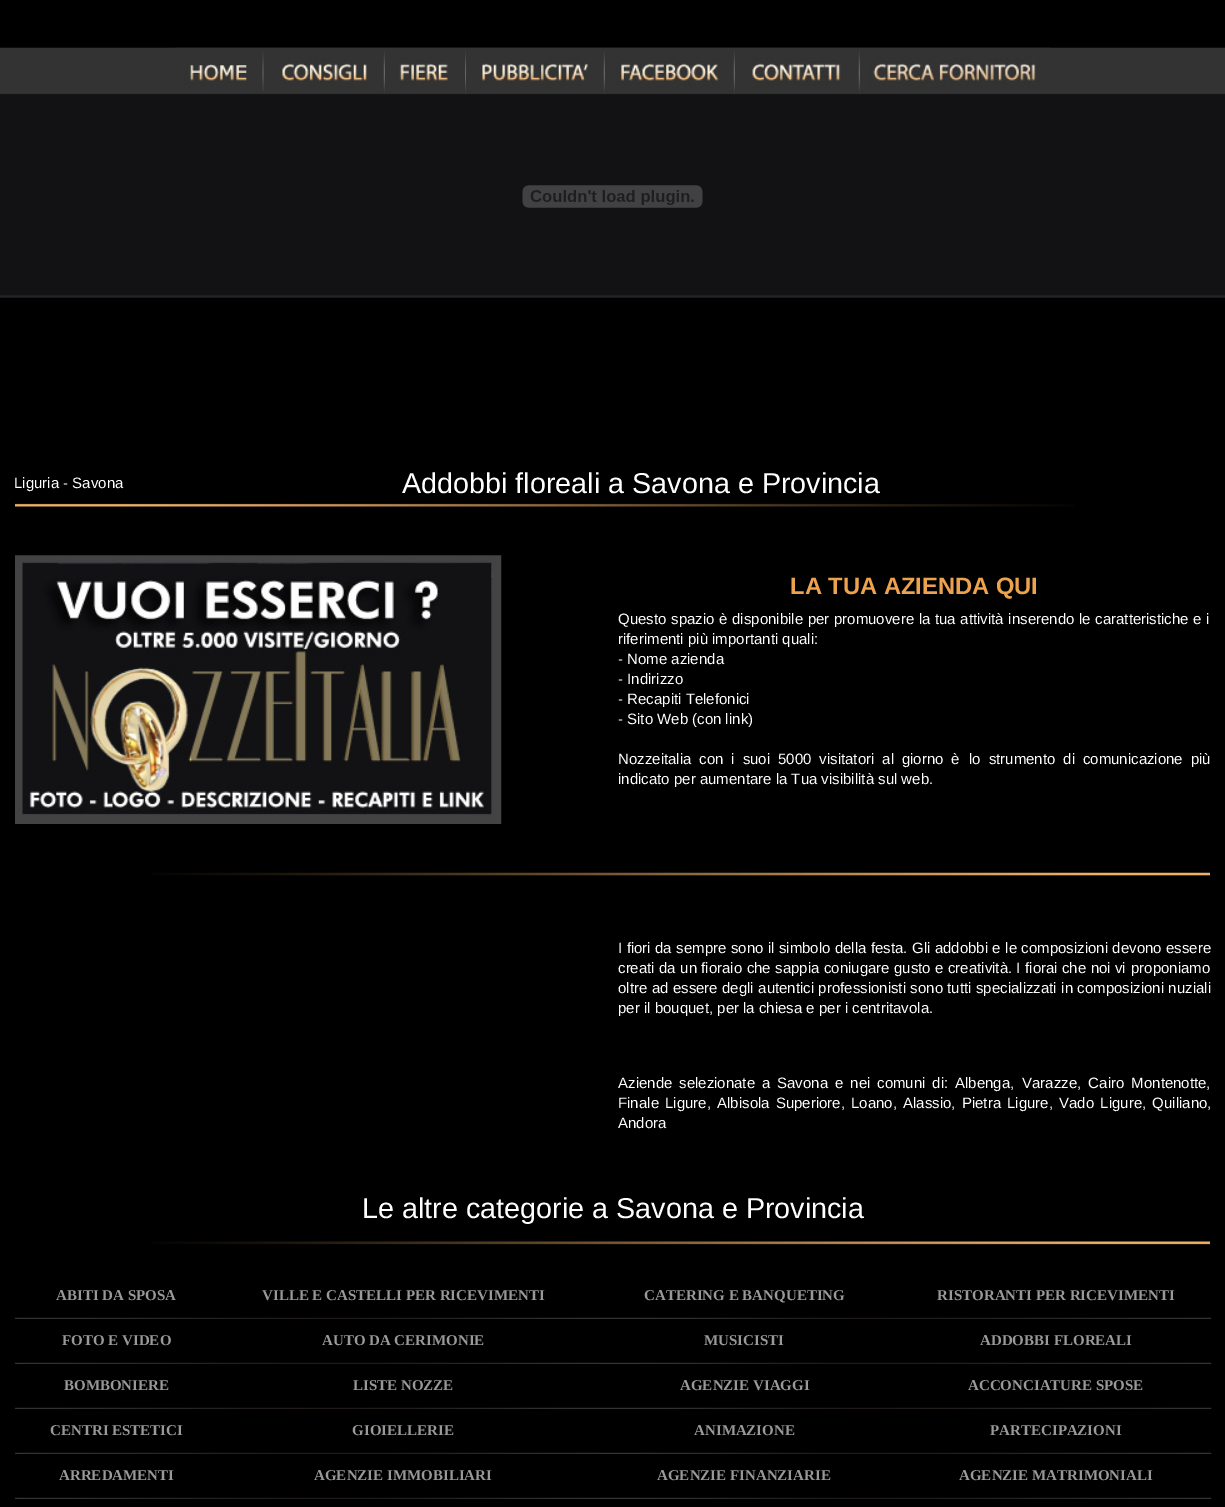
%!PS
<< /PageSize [1225 1507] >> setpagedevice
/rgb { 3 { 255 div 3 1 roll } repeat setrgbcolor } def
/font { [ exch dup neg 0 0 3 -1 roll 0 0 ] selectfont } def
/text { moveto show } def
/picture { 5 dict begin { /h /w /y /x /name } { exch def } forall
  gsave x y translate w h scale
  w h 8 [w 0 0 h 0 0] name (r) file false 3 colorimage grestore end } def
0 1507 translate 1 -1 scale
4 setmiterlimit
0 0 0 rgb
0 0 1225 1507 rectfill
(img_01.rgb) 0 47 1225 251 picture
(img_02.rgb) 175 47 88 41 picture
(img_03.rgb) 262 47 2 44 picture
(img_04.rgb) 263 47 121 41 picture
(img_05.rgb) 383 47 2 47 picture
(img_06.rgb) 385 47 80 41 picture
(img_07.rgb) 465 47 2 47 picture
(img_08.rgb) 466 47 138 41 picture
(img_05.rgb) 603 47 2 47 picture
(img_09.rgb) 605 47 129 41 picture
(img_05.rgb) 733 47 2 47 picture
(img_10.rgb) 735 47 124 41 picture
(img_05.rgb) 858 47 2 47 picture
(img_11.rgb) 860 47 190 41 picture
(img_12.rgb) 522 185 181 23 picture
(img_13.rgb) 15 503 1059 4 picture
(img_14.rgb) 15 555 487 269 picture
(img_15.rgb) 152 872 1058 4 picture
(img_16.rgb) 152 1241 1058 4 picture
(img_17.rgb) 15 1317 1197 2 picture
(img_17.rgb) 15 1362 1197 2 picture
(img_17.rgb) 15 1407 1197 2 picture
(img_17.rgb) 15 1452 1197 2 picture
(img_17.rgb) 15 1497 1197 2 picture
/LiberationSans-Regular 15 font
255 255 255 rgb
(Liguria - Savona) 14 488 text
/LiberationSans-Regular 28.75 font
(Addobbi floreali a Savona e Provincia) 402 493 text
/LiberationSans-Bold 23.75 font
237 162 78 rgb
(LA TUA AZIENDA QUI) 790 594 text
/LiberationSans-Regular 15 font
255 255 255 rgb
618 624 moveto 0.5 0 32 (Questo spazio è disponibile per promuovere la tua attività inserendo le caratteristiche e i) widthshow
(riferimenti più importanti quali:) 618 644 text
(- Nome azienda) 618 664 text
(- Indirizzo) 618 684 text
(- Recapiti Telefonici) 618 704 text
(- Sito Web \(con link\)) 618 724 text
618 764 moveto 3.75 0 32 (Nozzeitalia con i suoi 5000 visitatori al giorno è) widthshow
969 764 moveto 3.75 0 32 (lo strumento di comunicazione più) widthshow
(indicato per aumentare la Tua visibilità sul web.) 618 784 text
618 953 moveto 0.25 0 32 (I fiori da sempre sono il simbolo della festa. Gli addobbi e le composizioni devono essere) widthshow
618 973 moveto 0.25 0 32 (creati da un fioraio che sappia coniugare gusto e creatività. I fiorai che noi vi) widthshow
(proponiamo) 1131 973 text
618 993 moveto 0.25 0 32 (oltre ad essere degli autentici professionisti sono tutti specializzati in composizioni nuziali) widthshow
(per il bouquet, per la chiesa e per i centritavola.) 618 1013 text
618 1088 moveto 2.75 0 32 (Aziende selezionate a Savona e nei comuni di: Albenga,) widthshow
1022 1088 moveto 3 0 32 (Varazze, Cairo Montenotte,) widthshow
618 1108 moveto 2 0 32 (Finale Ligure,) widthshow
717 1108 moveto 2 0 32 (Albisola Superiore, Loano, Alassio, Pietra Ligure, Vado Ligure, Quiliano,) widthshow
(Andora) 618 1128 text
/LiberationSans-Regular 28.75 font
(Le altre categorie a Savona e Provincia) 362 1218 text
/LiberationSerif-Bold 15 font
153 153 153 rgb
(ABITI DA SPOSA) 56 1300 text
(VILLE E CASTELLI PER RICEVIMENTI) 262 1300 text
(CATERING E BANQUETING) 644 1300 text
(RISTORANTI PER RICEVIMENTI) 937 1300 text
(FOTO E VIDEO) 62 1345 text
(AUTO DA CERIMONIE) 322 1345 text
(MUSICISTI) 704 1345 text
(ADDOBBI FLOREALI) 980 1345 text
(BOMBONIERE) 64 1390 text
(LISTE NOZZE) 353 1390 text
(AGENZIE VIAGGI) 680 1390 text
(ACCONCIATURE SPOSE) 968 1390 text
(CENTRI ESTETICI) 50 1435 text
(GIOIELLERIE) 352 1435 text
(ANIMAZIONE) 694 1435 text
(PARTECIPAZIONI) 990 1435 text
(ARREDAMENTI) 59 1480 text
(AGENZIE IMMOBILIARI) 314 1480 text
(AGENZIE FINANZIARIE) 657 1480 text
(AGENZIE MATRIMONIALI) 959 1480 text
showpage
